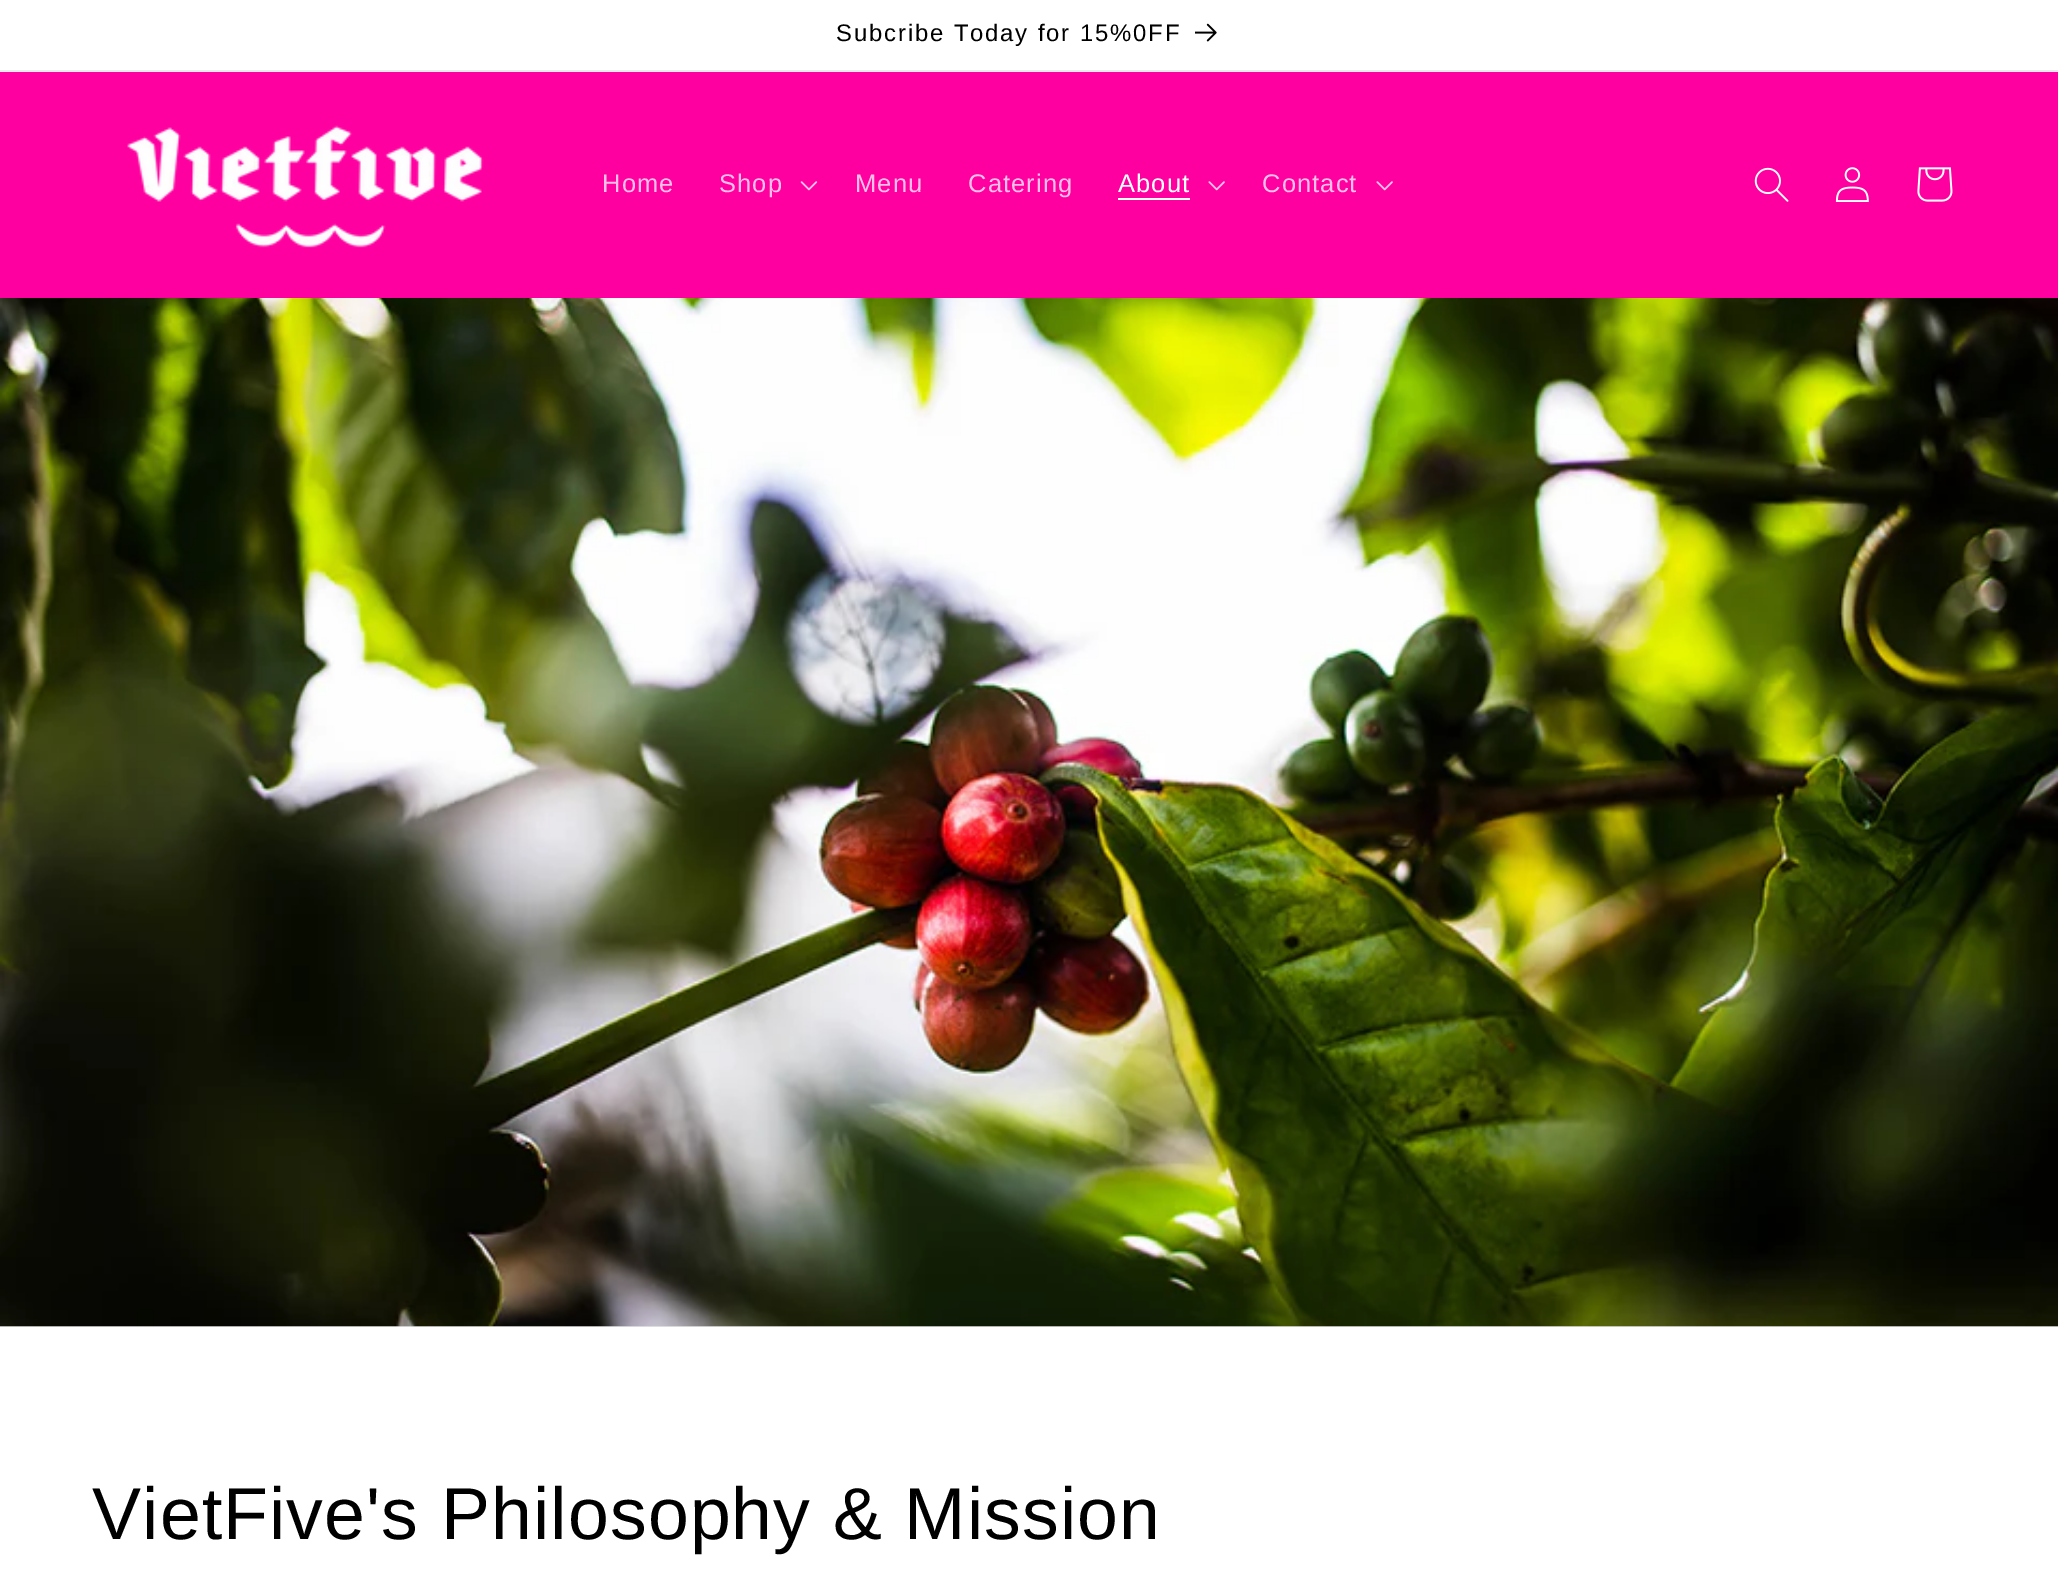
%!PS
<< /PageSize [2058 1574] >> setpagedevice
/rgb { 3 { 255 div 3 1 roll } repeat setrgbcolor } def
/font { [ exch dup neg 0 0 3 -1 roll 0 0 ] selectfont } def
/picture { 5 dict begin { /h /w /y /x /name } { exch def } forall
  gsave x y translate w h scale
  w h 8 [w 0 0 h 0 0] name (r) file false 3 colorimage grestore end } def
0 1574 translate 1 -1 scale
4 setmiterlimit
255 255 255 rgb
0 0 2058 1574 rectfill
235 235 235 rgb
0 70 2058 2 rectfill
(img_01.rgb) 1195 23 22 19 picture
255 0 160 rgb
0 72 2058 226 rectfill
(img_02.rgb) 127 125 357 123 picture
(img_03.rgb) 800 181 18 10 picture
255 255 255 rgb
1118 198 72 2 rectfill
(img_04.rgb) 1208 181 17 10 picture
(img_04.rgb) 1376 181 17 10 picture
(img_05.rgb) 1754 167 35 35 picture
(img_06.rgb) 1835 167 34 35 picture
(img_07.rgb) 1917 167 36 35 picture
230 230 230 rgb
0 1326 2058 1 rectfill
(img_08.rgb) 0 298 2058 1029 picture
/LiberationSans-Regular 23.9 font
0 0 0 rgb
836 41 moveto 1.85 0 (Subcribe Today for 15%0FF) ashow
/LiberationSans-Regular 25.5 font
255 191 231 rgb
602 192 moveto 1.1 0 (Home) ashow
719 192 moveto 1.1 0 (Shop) ashow
855 192 moveto 1.1 0 (Menu) ashow
968 192 moveto 1.1 0 (Catering) ashow
255 255 255 rgb
1118 192 moveto 1.1 0 (About) ashow
255 191 231 rgb
1262 192 moveto 1.1 0 (Contact) ashow
/LiberationSans-Regular 73.5 font
0 0 0 rgb
92 1539 moveto 1.1 0 (VietFive's Philosophy & Mission) ashow
showpage
